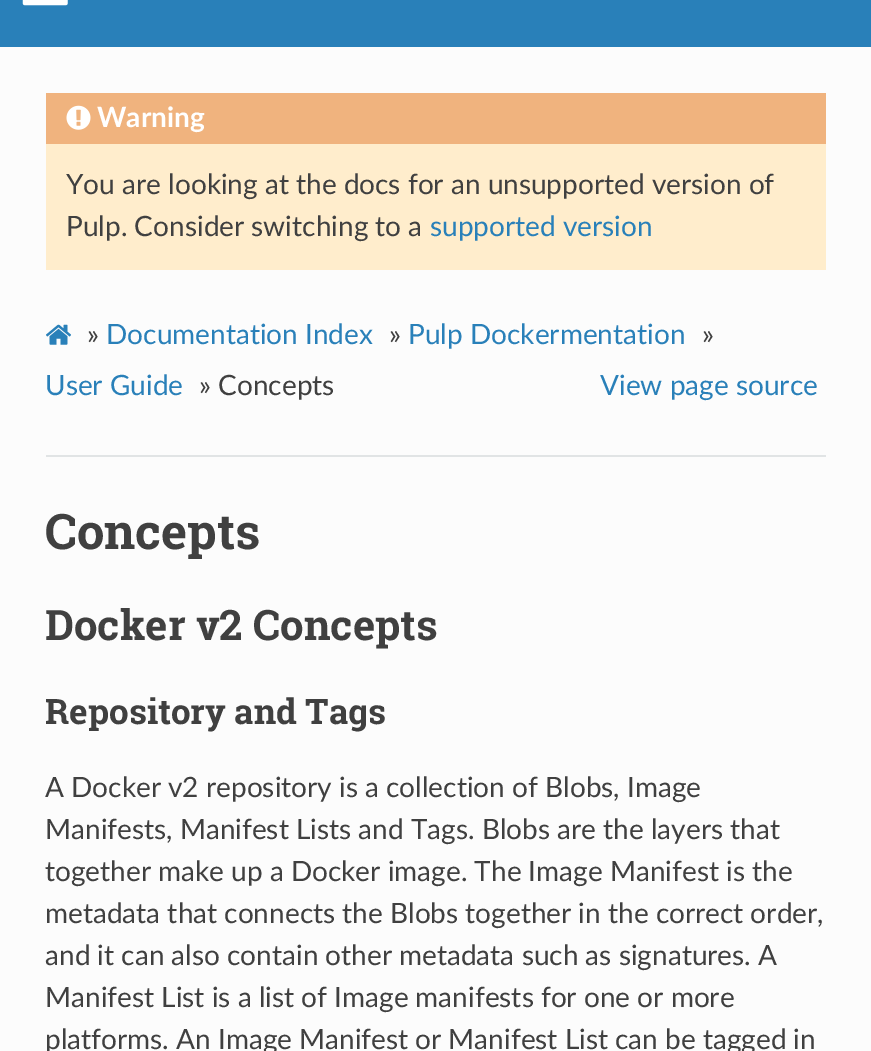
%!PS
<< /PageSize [871 1051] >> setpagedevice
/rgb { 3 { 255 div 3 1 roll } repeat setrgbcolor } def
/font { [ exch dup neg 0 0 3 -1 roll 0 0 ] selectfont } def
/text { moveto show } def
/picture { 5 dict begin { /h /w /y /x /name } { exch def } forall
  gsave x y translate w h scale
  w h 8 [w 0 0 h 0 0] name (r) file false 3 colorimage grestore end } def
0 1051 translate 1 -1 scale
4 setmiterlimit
252 252 252 rgb
0 0 871 1051 rectfill
41 128 185 rgb
0 0 871 47 rectfill
(img_01.rgb) 22 0 46 6 picture
255 237 204 rgb
46 144 780 126 rectfill
240 179 126 rgb
46 93 780 51 rectfill
(img_02.rgb) 66 105 25 25 picture
(img_03.rgb) 46 324 25 21 picture
225 228 229 rgb
46 455 780 2 rectfill
/Lato-Bold 28 font
255 255 255 rgb
(Warning) 97 127 text
/Lato-Regular 28 font
64 64 64 rgb
(You are looking at the docs for an unsupported version of) 66 194 text
(Pulp. Consider switching to a) 66 236 text
41 128 185 rgb
(supported version) 430 236 text
64 64 64 rgb
(») 87 344 text
41 128 185 rgb
(Documentation Index) 106 344 text
64 64 64 rgb
(») 389 344 text
41 128 185 rgb
(Pulp Dockermentation) 408 344 text
64 64 64 rgb
(») 702 344 text
41 128 185 rgb
(User Guide) 45 395 text
64 64 64 rgb
(» Concepts) 199 395 text
41 128 185 rgb
(View page source) 600 395 text
/RobotoSlab-Bold 49 font
64 64 64 rgb
(Concepts) 45 549 text
/RobotoSlab-Bold 42 font
(Docker v2 Concepts) 45 640 text
/RobotoSlab-Bold 35 font
(Repository and Tags) 45 724 text
/Lato-Regular 28 font
(A Docker v2 repository is a collection of Blobs, Image) 45 797 text
(Manifests, Manifest Lists and Tags. Blobs are the layers that) 45 839 text
(together make up a Docker image. The Image Manifest is the) 45 881 text
(metadata that connects the Blobs together in the correct order,) 45 923 text
(and it can also contain other metadata such as signatures. A) 45 965 text
(Manifest List is a list of Image manifests for one or more) 45 1007 text
(platforms. An Image Manifest or Manifest List can be tagged in) 45 1049 text
showpage
